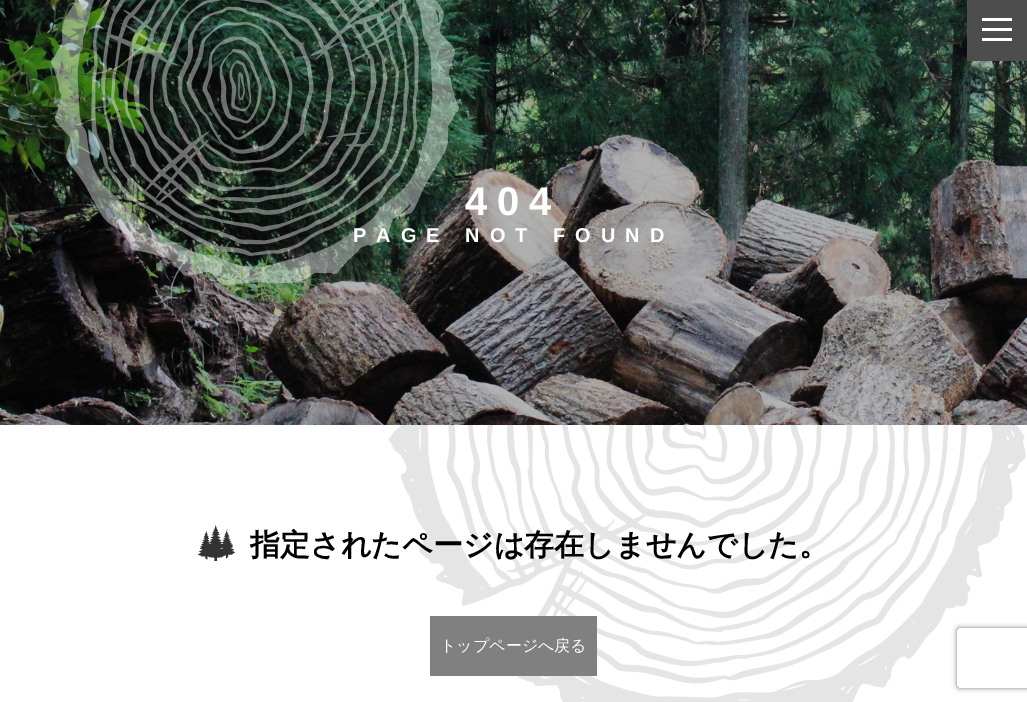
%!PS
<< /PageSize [1027 702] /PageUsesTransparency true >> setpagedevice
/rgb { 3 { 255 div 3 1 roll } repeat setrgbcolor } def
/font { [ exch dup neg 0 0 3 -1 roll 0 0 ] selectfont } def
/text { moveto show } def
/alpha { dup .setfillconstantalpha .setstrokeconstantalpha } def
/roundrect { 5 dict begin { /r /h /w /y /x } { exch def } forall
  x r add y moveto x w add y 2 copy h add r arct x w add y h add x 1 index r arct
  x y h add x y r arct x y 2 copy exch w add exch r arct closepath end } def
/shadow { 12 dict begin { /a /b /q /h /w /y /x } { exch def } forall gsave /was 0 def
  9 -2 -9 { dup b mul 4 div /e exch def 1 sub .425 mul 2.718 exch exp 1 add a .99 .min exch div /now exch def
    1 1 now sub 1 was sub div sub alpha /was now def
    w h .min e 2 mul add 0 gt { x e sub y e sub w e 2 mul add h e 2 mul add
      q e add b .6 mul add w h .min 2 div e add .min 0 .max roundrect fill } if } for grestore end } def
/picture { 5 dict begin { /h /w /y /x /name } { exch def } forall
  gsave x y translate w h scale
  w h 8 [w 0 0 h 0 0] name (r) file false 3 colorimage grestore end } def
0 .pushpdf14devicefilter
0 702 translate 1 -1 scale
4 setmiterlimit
255 255 255 rgb
0 0 1027 702 rectfill
(img_01.rgb) 0 0 1027 425 picture
77 77 77 rgb
967 0 60 61 rectfill
255 255 255 rgb
982 28 30 3 rectfill
982 18 30 3 rectfill
982 38 30 3 rectfill
(img_02.rgb) 51 0 408 285 picture
(img_03.rgb) 389 425 637 277 picture
(img_04.rgb) 198 525 37 36 picture
128 128 128 rgb
430 616 167 60 rectfill
gsave
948 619 moveto 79 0 rlineto 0 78 rlineto -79 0 rlineto closepath 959 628 moveto 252 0 rlineto 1 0 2 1 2 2 rcurveto 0 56 rlineto 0 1 -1 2 -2 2 rcurveto -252 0 rlineto -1 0 -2 -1 -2 -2 rcurveto 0 -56 rlineto 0 -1 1 -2 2 -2 rcurveto closepath eoclip newpath
957 628 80 60 2 2.5 1 shadow
grestore
/LiberationSans-Bold 40 font
255 255 255 rgb
465 215 moveto 10 0 (404) ashow
/LiberationSans-Bold 20 font
353 242 moveto 10 0 (PAGE NOT FOUND) ashow
/WenQuanYiZenHei-Bold 30 font
0 0 0 rgb
(指定されたページは存在しませんでした。) 250 555 text
/WenQuanYiZenHei-Medium 16 font
255 255 255 rgb
(トップページへ戻る) 440 651 text
.poppdf14devicefilter showpage
